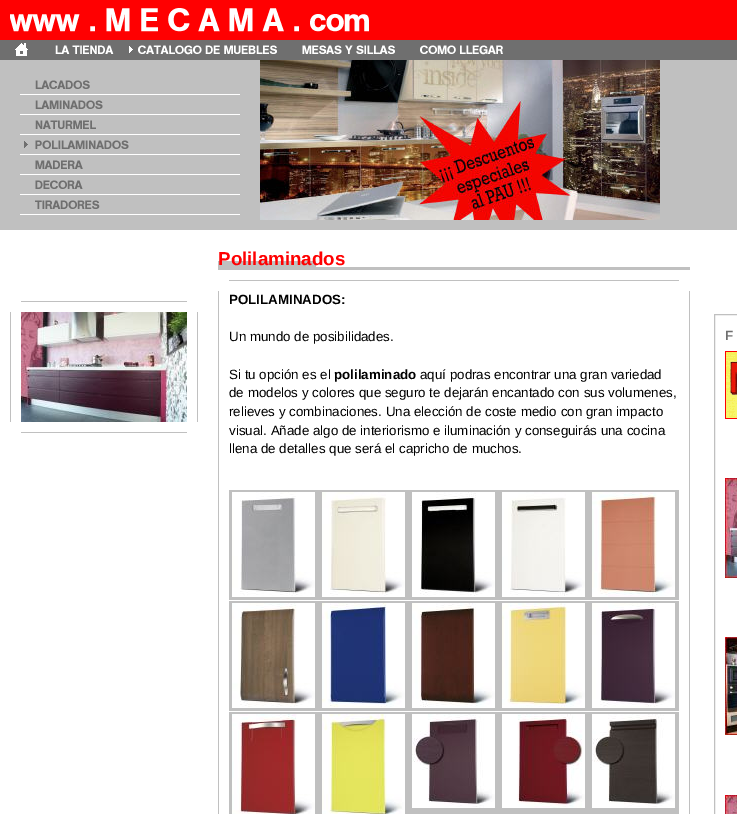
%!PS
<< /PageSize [737 814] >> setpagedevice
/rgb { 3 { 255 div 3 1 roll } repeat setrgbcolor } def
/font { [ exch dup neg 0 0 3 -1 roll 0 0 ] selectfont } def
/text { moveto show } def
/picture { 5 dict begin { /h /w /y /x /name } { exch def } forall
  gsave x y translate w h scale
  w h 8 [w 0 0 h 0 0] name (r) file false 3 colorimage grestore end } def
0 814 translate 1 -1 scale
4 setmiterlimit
255 255 255 rgb
0 0 737 814 rectfill
255 0 1 rgb
0 0 737 40 rectfill
(img_01.rgb) 10 8 359 24 picture
111 111 111 rgb
0 40 737 20 rectfill
(img_02.rgb) 15 43 13 13 picture
(img_03.rgb) 55 45 59 9 picture
(img_04.rgb) 129 45 148 10 picture
(img_05.rgb) 302 45 93 9 picture
(img_06.rgb) 420 45 83 10 picture
192 192 192 rgb
0 60 260 170 rectfill
(img_07.rgb) 20 80 220 15 picture
(img_08.rgb) 20 100 220 15 picture
(img_09.rgb) 20 120 220 15 picture
(img_10.rgb) 20 140 220 15 picture
(img_11.rgb) 20 160 220 15 picture
(img_12.rgb) 20 180 220 15 picture
(img_13.rgb) 20 200 220 15 picture
260 220 400 10 rectfill
(img_14.rgb) 260 60 400 160 picture
660 60 77 170 rectfill
(img_15.rgb) 218 261 472 9 picture
229 280 450 1 rectfill
21 301 166 1 rectfill
10 312 1 110 rectfill
(img_16.rgb) 21 312 166 110 picture
197 312 1 110 rectfill
21 432 166 1 rectfill
218 291 1 523 rectfill
689 291 1 523 rectfill
229 490 450 110 rectfill
(img_17.rgb) 232 492 83 105 picture
(img_18.rgb) 322 492 83 105 picture
(img_19.rgb) 412 492 83 105 picture
(img_20.rgb) 502 492 83 105 picture
(img_21.rgb) 592 492 83 105 picture
229 601 450 110 rectfill
(img_22.rgb) 232 603 83 105 picture
(img_23.rgb) 322 603 83 105 picture
(img_24.rgb) 412 603 83 105 picture
(img_25.rgb) 502 603 83 105 picture
(img_26.rgb) 592 603 83 105 picture
229 712 450 102 rectfill
(img_27.rgb) 232 714 83 100 picture
(img_28.rgb) 322 714 83 100 picture
(img_29.rgb) 412 714 83 94 picture
(img_30.rgb) 502 714 83 94 picture
(img_31.rgb) 592 714 83 94 picture
714.5 314.5 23 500 rectstroke
(img_32.rgb) 725 351 12 68 picture
(img_33.rgb) 725 478 12 100 picture
(img_34.rgb) 725 637 12 98 picture
(img_35.rgb) 725 795 12 19 picture
/LiberationSans-Bold 18.75 font
255 0 1 rgb
(Polilaminados) 218 265 text
/LiberationSans-Bold 13.35 font
0 0 0 rgb
(POLILAMINADOS:) 229 304 text
/LiberationSans-Regular 13.35 font
(Un mundo de posibilidades.) 229 341 text
(Si tu opción es el) 229 379 text
/LiberationSans-Bold 13.35 font
(polilaminado) 334 379 text
/LiberationSans-Regular 13.35 font
(aquí podras encontrar una gran variedad) 420 379 text
(de modelos y colores que seguro te dejarán encantado con sus volumenes,) 229 397 text
(relieves y combinaciones. Una elección de coste medio con gran impacto) 229 416 text
(visual. Añade algo de interiorismo e iluminación y conseguirás una cocina) 229 435 text
(llena de detalles que será el capricho de muchos.) 229 453 text
/LiberationSans-Bold 13.35 font
111 111 111 rgb
(F) 725 340 text
showpage
